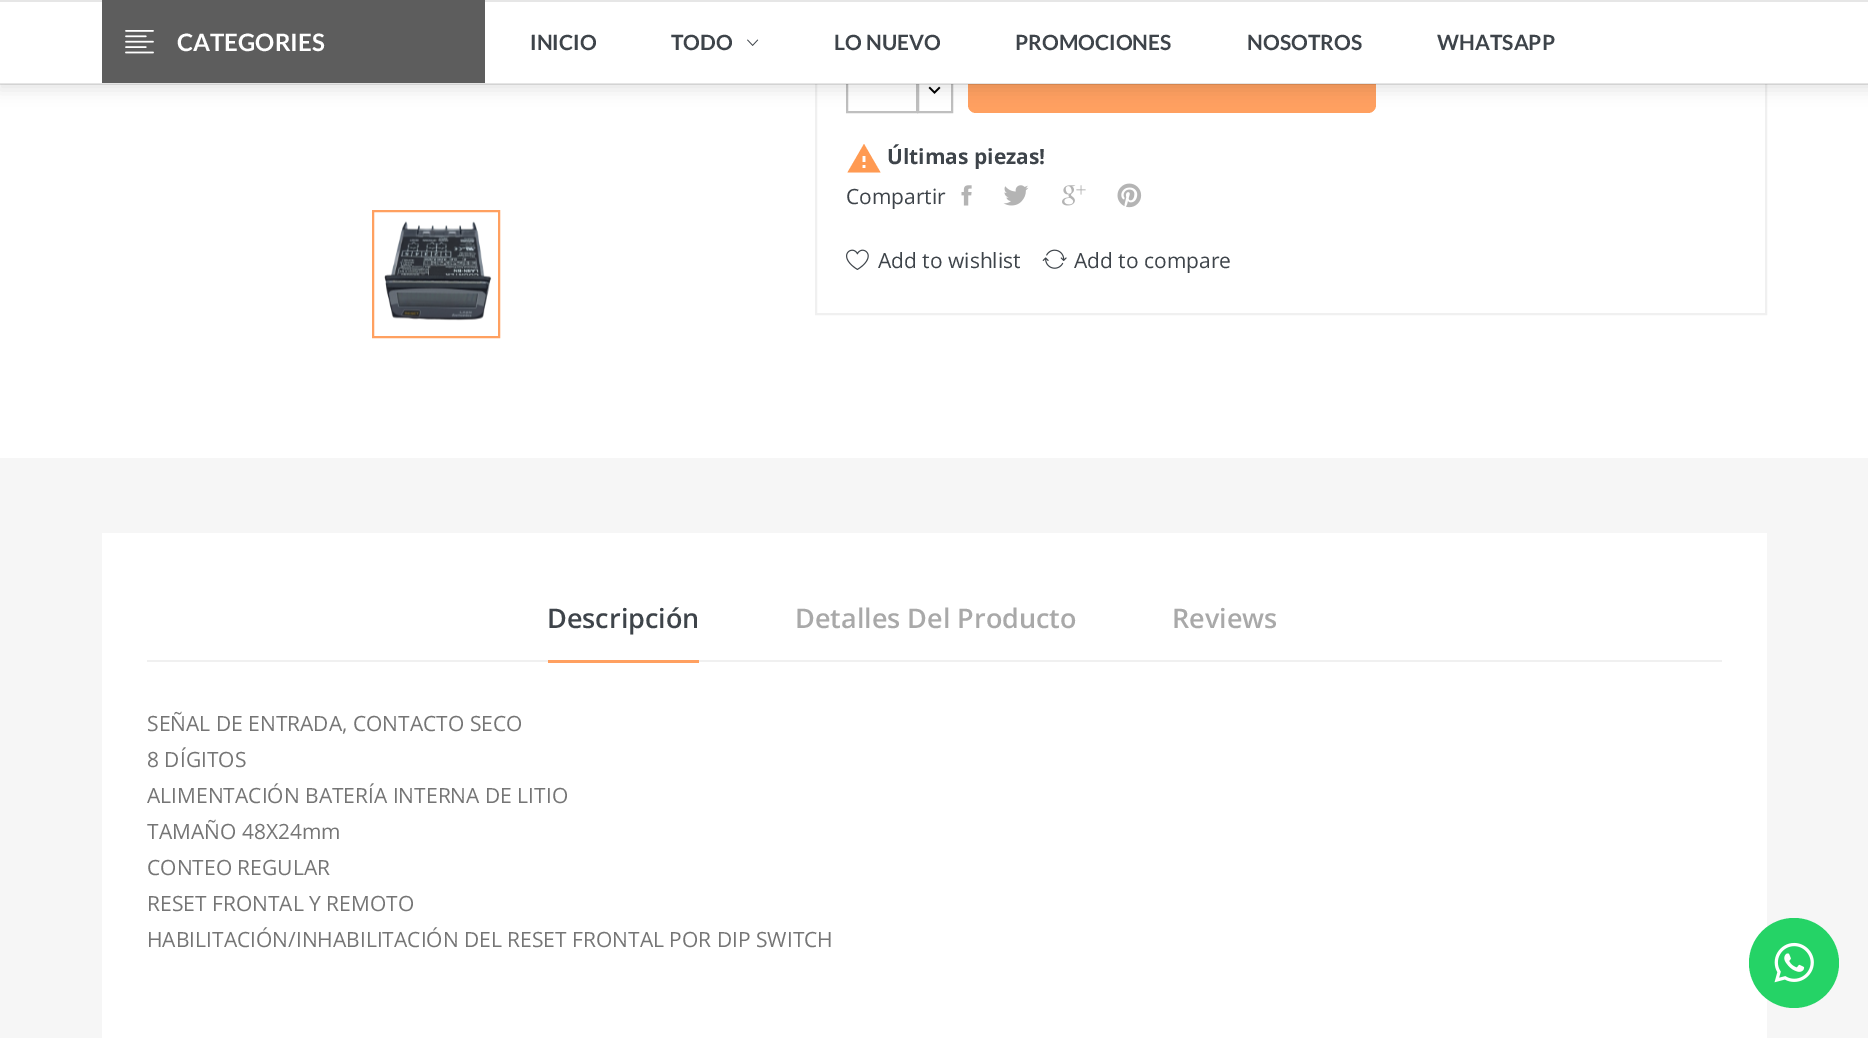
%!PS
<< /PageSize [1868 1038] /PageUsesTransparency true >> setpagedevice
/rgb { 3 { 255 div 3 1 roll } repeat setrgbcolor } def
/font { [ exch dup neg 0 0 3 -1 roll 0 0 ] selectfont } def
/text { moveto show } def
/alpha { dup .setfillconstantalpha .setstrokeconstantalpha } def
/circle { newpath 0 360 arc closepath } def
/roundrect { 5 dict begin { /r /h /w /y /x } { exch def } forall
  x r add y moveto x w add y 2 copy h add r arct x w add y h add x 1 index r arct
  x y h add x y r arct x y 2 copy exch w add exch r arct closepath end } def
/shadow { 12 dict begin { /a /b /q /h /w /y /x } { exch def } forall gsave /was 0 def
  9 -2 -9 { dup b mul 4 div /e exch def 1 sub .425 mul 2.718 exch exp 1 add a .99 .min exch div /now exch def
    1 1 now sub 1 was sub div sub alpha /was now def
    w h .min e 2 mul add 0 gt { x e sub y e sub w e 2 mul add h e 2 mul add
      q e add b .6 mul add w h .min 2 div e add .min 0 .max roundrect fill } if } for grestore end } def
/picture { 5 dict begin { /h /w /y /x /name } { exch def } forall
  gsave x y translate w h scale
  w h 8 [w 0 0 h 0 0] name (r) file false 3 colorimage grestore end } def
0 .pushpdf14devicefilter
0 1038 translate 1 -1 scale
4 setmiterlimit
255 255 255 rgb
0 0 1868 1038 rectfill
240 240 240 rgb
2 setlinewidth
816 -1 950 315 rectstroke
191 191 191 rgb
918 75 34 37 rectstroke
847 39 70 73 rectstroke
(img_04.rgb) 928 86 13 8 picture
255 160 96 rgb
968 38 408 75 8 roundrect fill
0 0 0 rgb
-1 3 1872 87 0 7.5 0.1 shadow
255 255 255 rgb
0 2 1868 82 rectfill
230 230 230 rgb
0 0 1868 2 rectfill
93 93 93 rgb
102 0 383 83 rectfill
(img_01.rgb) 125 30 29 24 picture
(img_02.rgb) 747 39 12 7 picture
0.1 alpha
0 0 0 rgb
0 83 1868 2 rectfill
1 alpha
(img_03.rgb) 384 221 108 100 picture
255 160 96 rgb
373 211 126 126 rectstroke
255 154 82 rgb
865.5 162 moveto 0 -6 rlineto -3 0 rlineto 0 6 rlineto closepath 865.5 168 moveto 0 -3 rlineto -3 0 rlineto 0 3 rlineto closepath 847.5 172.5 moveto 16.5 -28.5 rlineto 16.5 28.5 rlineto closepath fill
(img_05.rgb) 961 185 11 21 picture
(img_06.rgb) 1003 185 26 21 picture
(img_07.rgb) 1062 185 24 21 picture
(img_08.rgb) 1117 183 25 25 picture
(img_09.rgb) 846 249 23 21 picture
(img_10.rgb) 1042 249 25 20 picture
246 246 246 rgb
0 458 1868 580 rectfill
255 255 255 rgb
102 533 1665 505 rectfill
240 240 240 rgb
147 660 1575 2 rectfill
255 160 96 rgb
548 660 151 3 rectfill
37 211 102 rgb
1794 963 45 circle fill
(img_11.rgb) 1774 942 40 41 picture
/Lato-Bold 24 font
255 255 255 rgb
(CATEGORIES) 177 51 text
/Lato-Bold 21 font
62 68 74 rgb
(INICIO) 530 50 text
(TODO) 671 50 text
(LO NUEVO) 834 50 text
(PROMOCIONES) 1015 50 text
(NOSOTROS) 1247 50 text
(WHATSAPP) 1437 50 text
/OpenSans-Bold 21 font
(Últimas piezas!) 887 164 text
/OpenSans-Regular 21 font
(Compartir) 846 204 text
(Add to wishlist) 878 268 text
(Add to compare) 1074 268 text
/OpenSans-SemiBold 27 font
(Descripción) 547 628 text
169 169 169 rgb
(Detalles Del Producto) 795 628 text
(Reviews) 1172 628 text
/OpenSans-Regular 21 font
117 117 117 rgb
(SEÑAL DE ENTRADA, CONTACTO SECO) 147 731 text
(8 DÍGITOS) 147 767 text
(ALIMENTACIÓN BATERÍA INTERNA DE LITIO) 147 803 text
(TAMAÑO 48X24mm) 147 839 text
(CONTEO REGULAR) 147 875 text
(RESET FRONTAL Y REMOTO) 147 911 text
(HABILITACIÓN/INHABILITACIÓN DEL RESET FRONTAL POR DIP SWITCH) 147 947 text
.poppdf14devicefilter showpage
